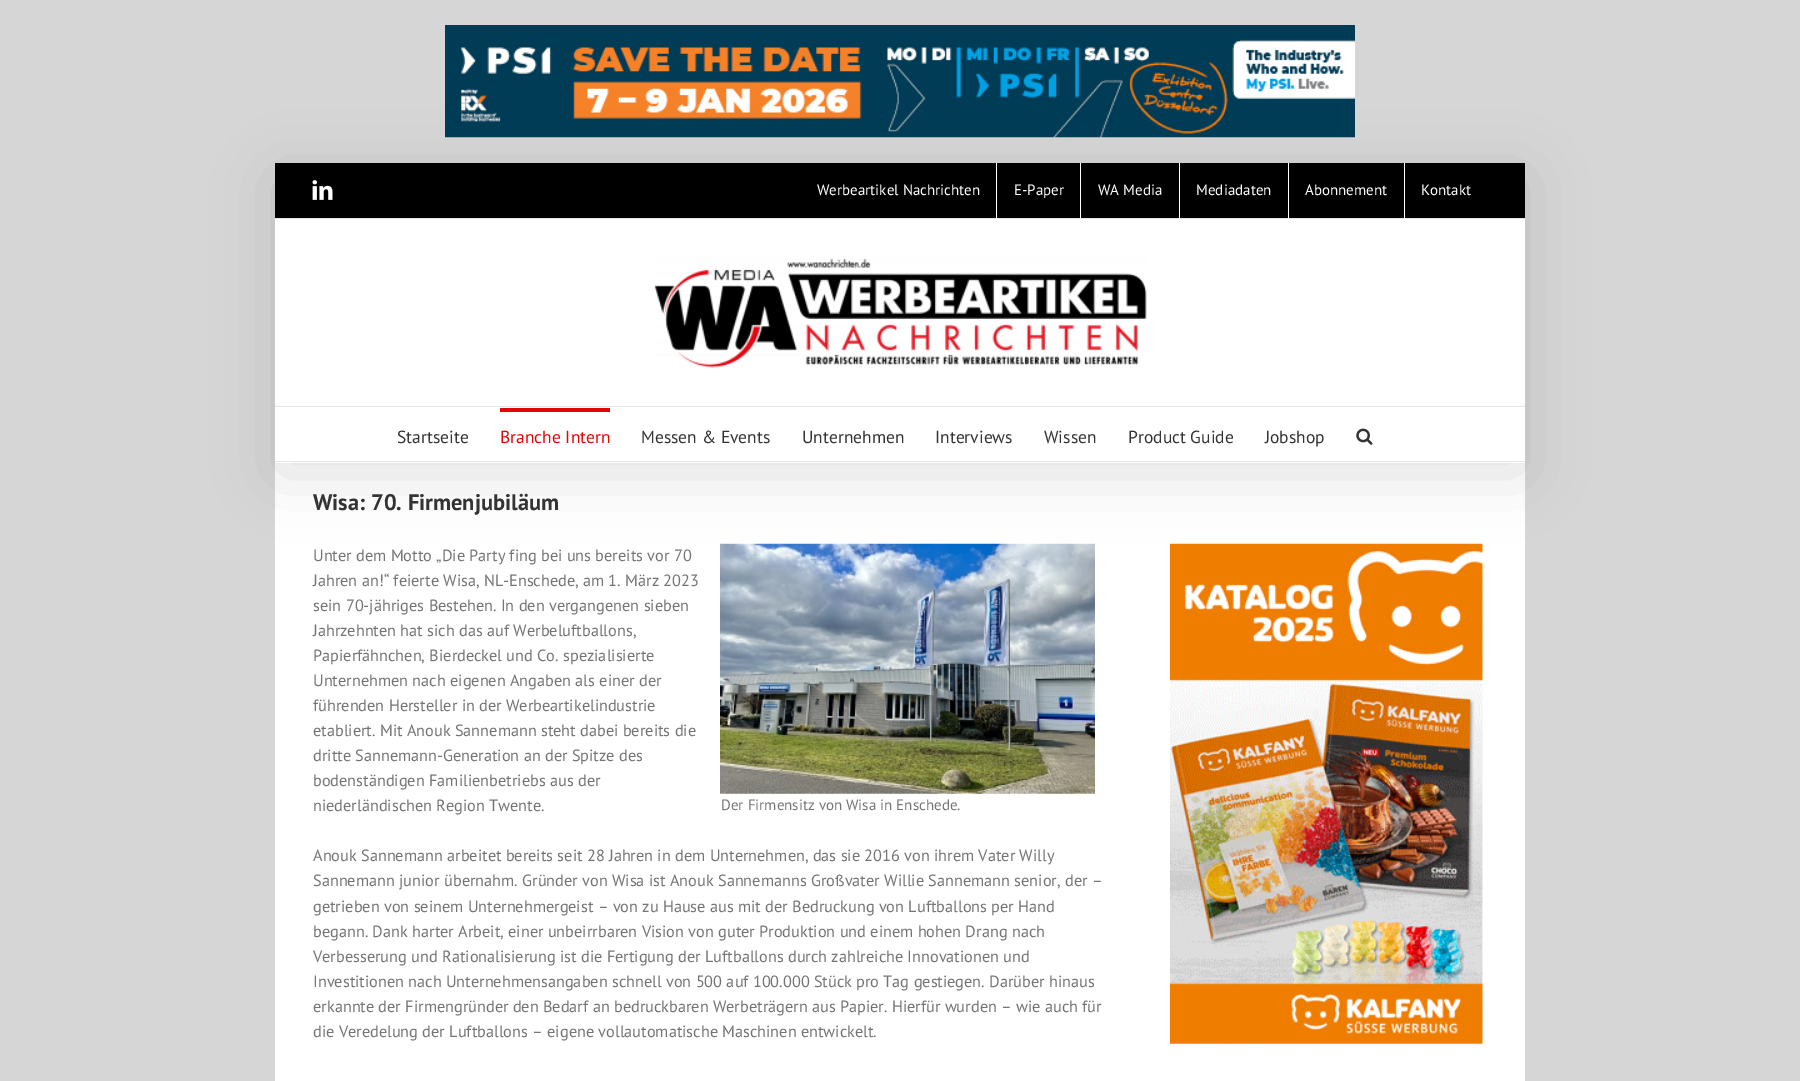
%!PS
<< /PageSize [1800 1081] /PageUsesTransparency true >> setpagedevice
/rgb { 3 { 255 div 3 1 roll } repeat setrgbcolor } def
/font { [ exch dup neg 0 0 3 -1 roll 0 0 ] selectfont } def
/text { moveto show } def
/alpha { dup .setfillconstantalpha .setstrokeconstantalpha } def
/roundrect { 5 dict begin { /r /h /w /y /x } { exch def } forall
  x r add y moveto x w add y 2 copy h add r arct x w add y h add x 1 index r arct
  x y h add x y r arct x y 2 copy exch w add exch r arct closepath end } def
/shadow { 12 dict begin { /a /b /q /h /w /y /x } { exch def } forall gsave /was 0 def
  9 -2 -9 { dup b mul 4 div /e exch def 1 sub .425 mul 2.718 exch exp 1 add a .99 .min exch div /now exch def
    1 1 now sub 1 was sub div sub alpha /was now def
    w h .min e 2 mul add 0 gt { x e sub y e sub w e 2 mul add h e 2 mul add
      q e add b .6 mul add w h .min 2 div e add .min 0 .max roundrect fill } if } for grestore end } def
/picture { 5 dict begin { /h /w /y /x /name } { exch def } forall
  gsave x y translate w h scale
  w h 8 [w 0 0 h 0 0] name (r) file false 3 colorimage grestore end } def
0 .pushpdf14devicefilter
0 1081 translate 1 -1 scale
4 setmiterlimit
215 214 214 rgb
0 0 1800 1081 rectfill
(img_01.rgb) 445 25 910 113 picture
255 255 255 rgb
275 463 1250 618 rectfill
(img_05.rgb) 720 543 375 251 picture
(img_06.rgb) 1170 543 313 501 picture
0 0 0 rgb
278 178 1245 295 0 31 0.14 shadow
275 163 1250 55 rectfill
229 229 229 rgb
275 218 1250 1 rectfill
(img_02.rgb) 312 180 21 20 picture
255 255 255 rgb
996 163 1 55 rectfill
1080 163 1 55 rectfill
1179 163 1 55 rectfill
1288 163 1 55 rectfill
1404 163 1 55 rectfill
275 219 1250 244 rectfill
229 229 229 rgb
275 406 1250 1 rectfill
(img_03.rgb) 654 258 493 110 picture
275 461 1250 1 rectfill
225 7 7 rgb
500 408 110 4 rectfill
(img_04.rgb) 1356 428 17 17 picture
/PTSans-Regular 15 font
255 255 255 rgb
(Werbeartikel Nachrichten) 817 195 text
(E-Paper) 1014 195 text
(WA Media) 1098 195 text
(Mediadaten) 1196 195 text
(Abonnement) 1305 195 text
(Kontakt) 1421 195 text
/PTSans-Regular 17.5 font
51 51 51 rgb
(Startseite) 397 443 text
225 7 7 rgb
(Branche Intern) 500 443 text
51 51 51 rgb
(Messen & Events) 641 443 text
(Unternehmen) 802 443 text
(Interviews) 935 443 text
(Wissen) 1044 443 text
(Product Guide) 1128 443 text
(Jobshop) 1265 443 text
/PTSans-Bold 22.5 font
(Wisa: 70. Firmenjubiläum) 313 510 text
/PTSans-Regular 16.25 font
116 116 116 rgb
(Unter dem Motto „Die Party fing bei uns bereits vor 70) 313 561 text
(Jahren an!“ feierte Wisa, NL-Enschede, am 1. März 2023) 313 586 text
(sein 70-jähriges Bestehen. In den vergangenen sieben) 313 611 text
(Jahrzehnten hat sich das auf Werbeluftballons,) 313 636 text
(Papierfähnchen, Bierdeckel und Co. spezialisierte) 313 661 text
(Unternehmen nach eigenen Angaben als einer der) 313 686 text
(führenden Hersteller in der Werbeartikelindustrie) 313 711 text
(etabliert. Mit Anouk Sannemann steht dabei bereits die) 313 736 text
(dritte Sannemann-Generation an der Spitze des) 313 761 text
(bodenständigen Familienbetriebs aus der) 313 786 text
(niederländischen Region Twente.) 313 811 text
/PTSans-Regular 15 font
(Der Firmensitz von Wisa in Enschede.) 721 810 text
/PTSans-Regular 16.25 font
(Anouk Sannemann arbeitet bereits seit 28 Jahren in dem Unternehmen, das sie 2016 von ihrem Vater Willy) 313 861 text
(Sannemann junior übernahm. Gründer von Wisa ist Anouk Sannemanns Großvater Willie Sannemann senior, der –) 313 886 text
(getrieben von seinem Unternehmergeist – von zu Hause aus mit der Bedruckung von Luftballons per Hand) 313 912 text
(begann. Dank harter Arbeit, einer unbeirrbaren Vision von guter Produktion und einem hohen Drang nach) 313 937 text
(Verbesserung und Rationalisierung ist die Fertigung der Luftballons durch zahlreiche Innovationen und) 313 962 text
(Investitionen nach Unternehmensangaben schnell von 500 auf 100.000 Stück pro Tag gestiegen. Darüber hinaus) 313 987 text
(erkannte der Firmengründer den Bedarf an bedruckbaren Werbeträgern aus Papier. Hierfür wurden – wie auch für) 313 1012 text
(die Veredelung der Luftballons – eigene vollautomatische Maschinen entwickelt.) 313 1037 text
.poppdf14devicefilter showpage
